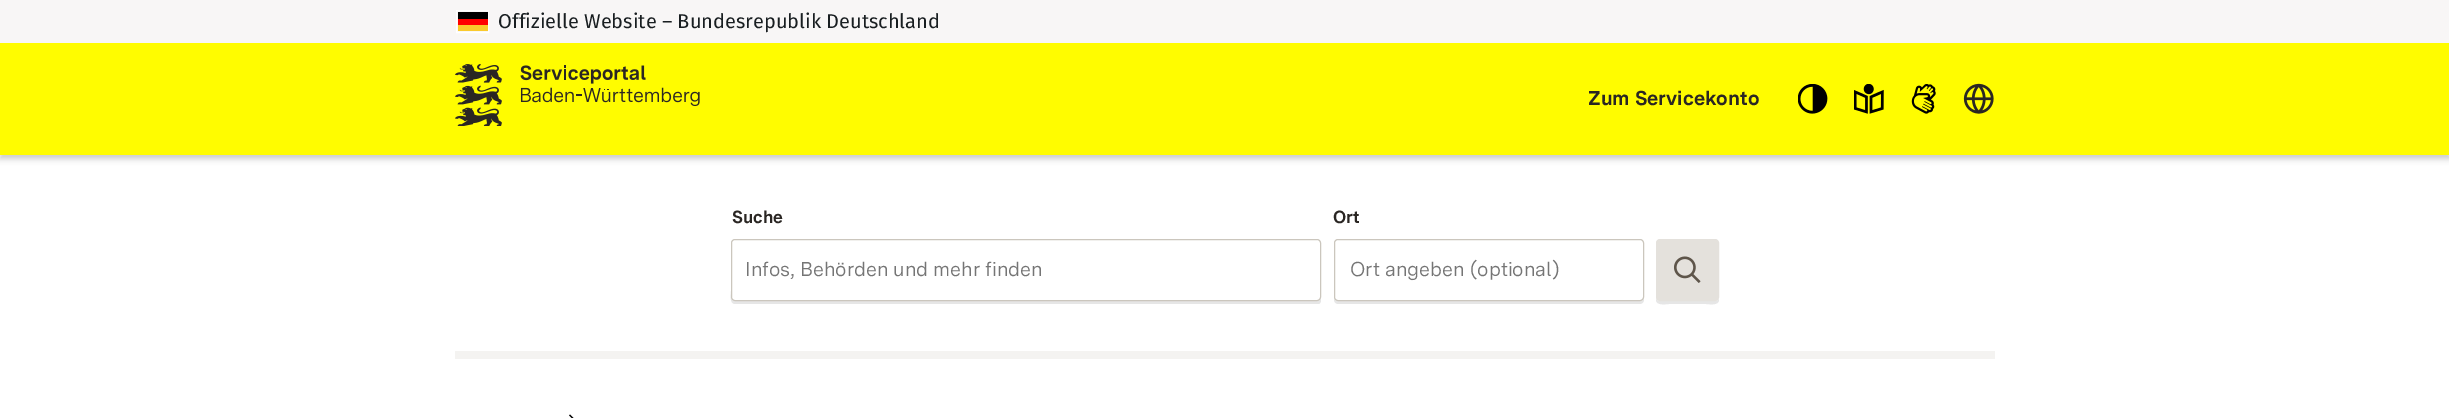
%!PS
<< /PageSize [2449 418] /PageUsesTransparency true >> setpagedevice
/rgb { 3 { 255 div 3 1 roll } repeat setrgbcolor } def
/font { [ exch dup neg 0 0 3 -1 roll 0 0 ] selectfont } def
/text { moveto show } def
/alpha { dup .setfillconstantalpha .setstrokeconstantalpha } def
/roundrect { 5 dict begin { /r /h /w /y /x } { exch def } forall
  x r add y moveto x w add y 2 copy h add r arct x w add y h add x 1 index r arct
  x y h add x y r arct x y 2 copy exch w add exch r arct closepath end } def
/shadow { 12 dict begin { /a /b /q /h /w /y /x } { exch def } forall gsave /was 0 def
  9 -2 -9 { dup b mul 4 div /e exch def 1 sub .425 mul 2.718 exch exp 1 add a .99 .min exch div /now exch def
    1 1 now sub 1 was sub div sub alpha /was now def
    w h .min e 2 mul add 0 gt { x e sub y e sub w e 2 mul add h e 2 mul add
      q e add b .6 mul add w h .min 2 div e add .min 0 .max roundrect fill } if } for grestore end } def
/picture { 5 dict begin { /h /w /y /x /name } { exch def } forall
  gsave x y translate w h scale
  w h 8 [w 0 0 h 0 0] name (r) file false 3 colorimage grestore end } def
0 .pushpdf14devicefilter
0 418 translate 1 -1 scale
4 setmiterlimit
255 255 255 rgb
0 0 2449 418 rectfill
0 0 0 rgb
0 4 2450 155 0 3 0.2 shadow
255 252 0 rgb
0 43 2449 112 rectfill
248 246 246 rgb
0 0 2449 43 rectfill
255 255 255 rgb
456.5 10.5 32 22 rectstroke
0 0 0 rgb
458 12 30 7 rectfill
255 0 0 rgb
458 19 30 6 rectfill
250 202 44 rgb
458 25 30 6 rectfill
(img_01.rgb) 455 64 245 62 picture
(img_02.rgb) 1798 84 30 30 picture
(img_03.rgb) 1854 84 30 30 picture
(img_04.rgb) 1911 84 25 30 picture
(img_05.rgb) 1963 83 31 31 picture
244 243 241 rgb
455 351 1540 8 rectfill
230 230 230 rgb
731 244 moveto 0 47 rlineto 0 2 -2 13 4 13 rcurveto 584 0 rlineto 2 -1 2 -3 2 -5 rcurveto -1 1 -2 2 -3 2 rcurveto -583 0 rlineto -2 0 -4 -1 -4 -3 rcurveto closepath fill
255 255 255 rgb
731.5 239.5 589 61 3.5 roundrect gsave fill grestore
203 198 189 rgb
stroke
230 230 230 rgb
1334 299 moveto 0 1 rlineto 0 2 2 4 4 4 rcurveto 302 0 rlineto 2 0 4 -2 4 -4 rcurveto 0 -56 rlineto 0 54 rlineto 0 2 -2 3 -4 3 rcurveto -302 0 rlineto -2 0 -3 -1 -4 -2 rcurveto closepath fill
255 255 255 rgb
1334.5 239.5 309 61 3.5 roundrect gsave fill grestore
203 198 189 rgb
stroke
230 230 230 rgb
1656 244 moveto 0 56 rlineto 0 6 11 4 13 4 rcurveto 37 0 rlineto 2 0 13 2 13 -4 rcurveto 0 -56 rlineto 0 54 rlineto 0 2 -2 3 -4 3 rcurveto -55 0 rlineto -2 0 -4 -1 -4 -3 rcurveto closepath fill
228 225 220 rgb
1657.5 240.5 60 59 2.5 roundrect gsave fill grestore
3 setlinewidth
stroke
(img_06.rgb) 1674 256 27 27 picture
(img_07.rgb) 569 414 5 4 picture
/FiraSans-Regular 20 font
25 30 33 rgb
(Offizielle Website – Bundesrepublik Deutschland) 498 28 text
/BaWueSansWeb-Bold 20 font
42 38 35 rgb
(Zum Servicekonto) 1588 105 text
/BaWueSansWeb-Bold 17.5 font
(Suche) 732 223 text
/BaWueSansWeb-Regular 20 font
117 117 117 rgb
(Infos, Behörden und mehr finden) 745 276 text
/BaWueSansWeb-Bold 17.5 font
42 38 35 rgb
(Ort) 1333 223 text
/BaWueSansWeb-Regular 20 font
117 117 117 rgb
(Ort angeben \(optional\)) 1350 276 text
.poppdf14devicefilter showpage
